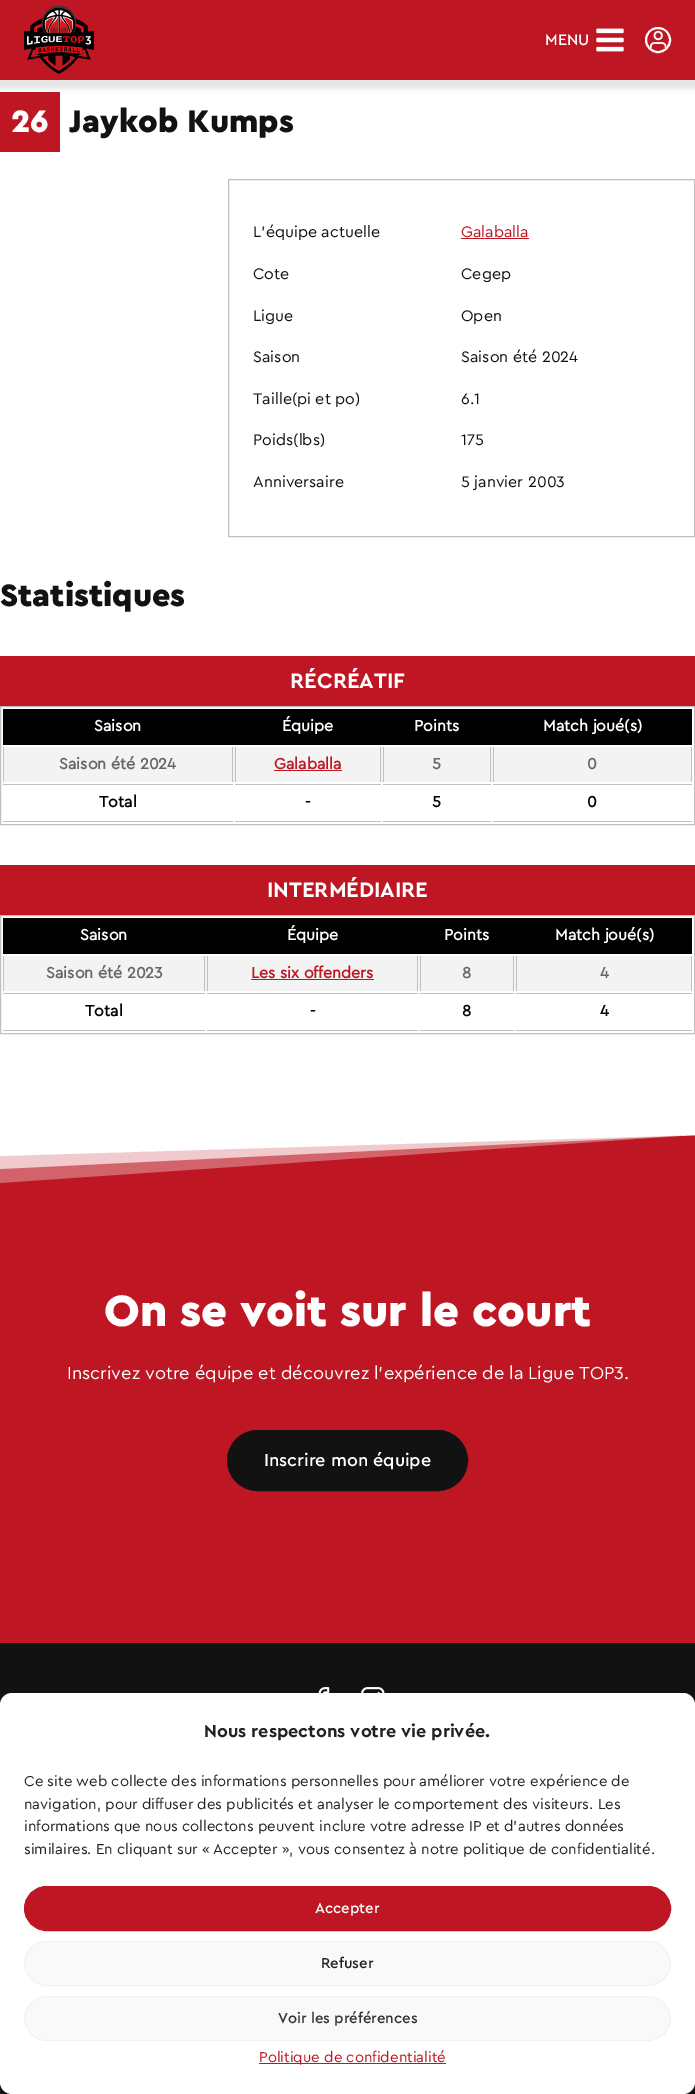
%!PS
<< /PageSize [695 2094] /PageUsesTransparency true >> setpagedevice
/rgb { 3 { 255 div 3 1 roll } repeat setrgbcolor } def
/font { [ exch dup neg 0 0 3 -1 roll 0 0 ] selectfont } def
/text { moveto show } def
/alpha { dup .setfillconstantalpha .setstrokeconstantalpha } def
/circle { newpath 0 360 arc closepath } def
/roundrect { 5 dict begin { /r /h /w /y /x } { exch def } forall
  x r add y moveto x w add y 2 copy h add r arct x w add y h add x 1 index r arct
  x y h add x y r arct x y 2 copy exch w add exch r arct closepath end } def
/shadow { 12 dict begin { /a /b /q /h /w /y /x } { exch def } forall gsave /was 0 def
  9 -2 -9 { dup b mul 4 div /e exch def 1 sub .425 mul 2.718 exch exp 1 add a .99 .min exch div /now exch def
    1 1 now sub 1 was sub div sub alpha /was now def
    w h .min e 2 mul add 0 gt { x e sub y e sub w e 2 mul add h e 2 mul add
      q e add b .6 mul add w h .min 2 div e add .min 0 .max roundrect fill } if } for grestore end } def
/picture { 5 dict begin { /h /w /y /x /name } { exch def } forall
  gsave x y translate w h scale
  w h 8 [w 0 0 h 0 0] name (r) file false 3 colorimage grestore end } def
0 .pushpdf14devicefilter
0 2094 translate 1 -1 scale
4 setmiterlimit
255 255 255 rgb
0 0 695 2094 rectfill
190 22 34 rgb
0 92 60 60 rectfill
0 0 0 rgb
-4 1 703 88 0 2.5 0.1 shadow
190 22 34 rgb
0 0 695 80 rectfill
(img_01.rgb) 24 6 70 68 picture
(img_02.rgb) 596 28 28 24 picture
255 255 255 rgb
2 setlinewidth
658 40 12 circle stroke
(img_03.rgb) 649 30 18 19 picture
192 192 192 rgb
1 setlinewidth
228.5 179.5 466 357 rectstroke
190 22 34 rgb
461 238 68 1 rectfill
0 656 695 50 rectfill
192 192 192 rgb
0.5 706.5 694 118 rectstroke
0 0 0 rgb
3 709 689 36 rectfill
243 243 243 rgb
4 747 687 35 rectfill
192 192 192 rgb
232 747 1 35 rectfill
3 747 1 35 rectfill
380 747 1 35 rectfill
235 747 1 35 rectfill
190 22 34 rgb
274 770 68 1 rectfill
192 192 192 rgb
490 747 1 35 rectfill
383 747 1 35 rectfill
691 747 1 35 rectfill
493 747 1 35 rectfill
3 784 230 1 rectfill
3 821 230 1 rectfill
235 784 146 1 rectfill
235 821 146 1 rectfill
383 784 108 1 rectfill
383 821 108 1 rectfill
493 784 199 1 rectfill
493 821 199 1 rectfill
190 22 34 rgb
0 865 695 50 rectfill
192 192 192 rgb
0.5 915.5 694 118 rectstroke
0 0 0 rgb
3 918 689 36 rectfill
243 243 243 rgb
4 956 687 35 rectfill
192 192 192 rgb
204 956 1 35 rectfill
3 956 1 35 rectfill
417 956 1 35 rectfill
207 956 1 35 rectfill
190 22 34 rgb
251 979 123 1 rectfill
192 192 192 rgb
513 956 1 35 rectfill
420 956 1 35 rectfill
691 956 1 35 rectfill
516 956 1 35 rectfill
3 993 202 1 rectfill
3 1030 202 1 rectfill
207 993 211 1 rectfill
207 1030 211 1 rectfill
420 993 94 1 rectfill
420 1030 94 1 rectfill
516 993 176 1 rectfill
516 1030 176 1 rectfill
190 22 34 rgb
0 1135 695 508 rectfill
0.33 alpha
255 255 255 rgb
695 1135 moveto -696 48 rlineto 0 -50 rlineto 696 0 rlineto closepath fill
0.66 alpha
695 1135 moveto -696 34 rlineto 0 -36 rlineto 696 0 rlineto closepath fill
1 alpha
695 1135 moveto -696 21 rlineto 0 -23 rlineto 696 0 rlineto closepath fill
18 18 18 rgb
228 1431 239 59 29.5 roundrect gsave fill grestore
2 setlinewidth
stroke
0 1643 695 451 rectfill
(img_04.rgb) 318 1687 12 6 picture
(img_05.rgb) 361 1687 24 6 picture
255 255 255 rgb
0 1693 695 401 12 roundrect fill
190 22 34 rgb
24.5 1886.5 646 44 22 roundrect gsave fill grestore
1 setlinewidth
stroke
249 249 249 rgb
24.5 1941.5 646 44 22 roundrect gsave fill grestore
242 242 242 rgb
stroke
249 249 249 rgb
24.5 1996.5 646 44 22 roundrect gsave fill grestore
242 242 242 rgb
stroke
190 22 34 rgb
259 2063 187 1 rectfill
/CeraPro-Medium 16 font
255 255 255 rgb
(MENU) 545 45 text
/CeraPro-Black 32.5 font
(26) 11 132 text
18 18 18 rgb
(Jaykob Kumps) 69 132 text
/CeraPro-Regular 16 font
(L'équipe actuelle) 253 237 text
(Cote) 253 279 text
(Ligue) 253 321 text
(Saison) 253 362 text
(Taille\(pi et po\)) 253 404 text
(Poids\(lbs\)) 253 445 text
(Anniversaire) 253 487 text
190 22 34 rgb
(Galaballa) 461 237 text
18 18 18 rgb
(Cegep) 461 279 text
(Open) 461 321 text
(Saison été 2024) 461 362 text
(6.1) 461 404 text
(175) 461 445 text
(5 janvier 2003) 461 487 text
/CeraPro-Black 32.5 font
(Statistiques) 0 606 text
/CeraPro-Bold 22 font
255 255 255 rgb
(RÉCRÉATIF) 290 688 text
/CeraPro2-Bold 16 font
(Saison) 94 731 text
(Équipe) 282 731 text
(Points) 414 731 text
(Match joué\(s\)) 543 731 text
102 102 102 rgb
(Saison été 2024) 59 769 text
190 22 34 rgb
(Galaballa) 274 769 text
102 102 102 rgb
(5) 432 769 text
(0) 587 769 text
0 0 0 rgb
(Total) 99 807 text
(-) 305 807 text
(5) 432 807 text
(0) 587 807 text
/CeraPro-Bold 22 font
255 255 255 rgb
(INTERMÉDIAIRE) 267 897 text
/CeraPro2-Bold 16 font
(Saison) 80 940 text
(Équipe) 287 940 text
(Points) 444 940 text
(Match joué\(s\)) 555 940 text
102 102 102 rgb
(Saison été 2023) 46 978 text
190 22 34 rgb
(Les six offenders) 251 978 text
102 102 102 rgb
(8) 462 978 text
(4) 600 978 text
0 0 0 rgb
(Total) 85 1016 text
(-) 310 1016 text
(8) 462 1016 text
(4) 600 1016 text
/CeraPro-Black 46 font
255 255 255 rgb
(On se voit sur le court) 104 1326 text
/CeraPro-Regular 18.2 font
(Inscrivez votre équipe et découvrez l’expérience de la Ligue TOP3.) 67 1379 text
/CeraPro-Medium 18 font
(Inscrire mon équipe) 264 1466 text
/CeraPro-Bold 18 font
34 34 34 rgb
(Nous respectons votre vie privée.) 204 1737 text
/CeraPro-Regular 15 font
(Ce site web collecte des informations personnelles pour améliorer votre expérience de) 24 1786 text
(navigation, pour diffuser des publicités et analyser le comportement des visiteurs. Les) 24 1809 text
(informations que nous collectons peuvent inclure votre adresse IP et d'autres données) 24 1831 text
(similaires. En cliquant sur « Accepter », vous consentez à notre politique de confidentialité.) 24 1854 text
/CeraPro-Medium 15 font
255 255 255 rgb
(Accepter) 315 1913 text
34 34 34 rgb
(Refuser) 321 1968 text
51 51 51 rgb
(Voir les préférences) 278 2023 text
/CeraPro-Regular 15 font
190 22 34 rgb
(Politique de confidentialité) 259 2062 text
.poppdf14devicefilter showpage
